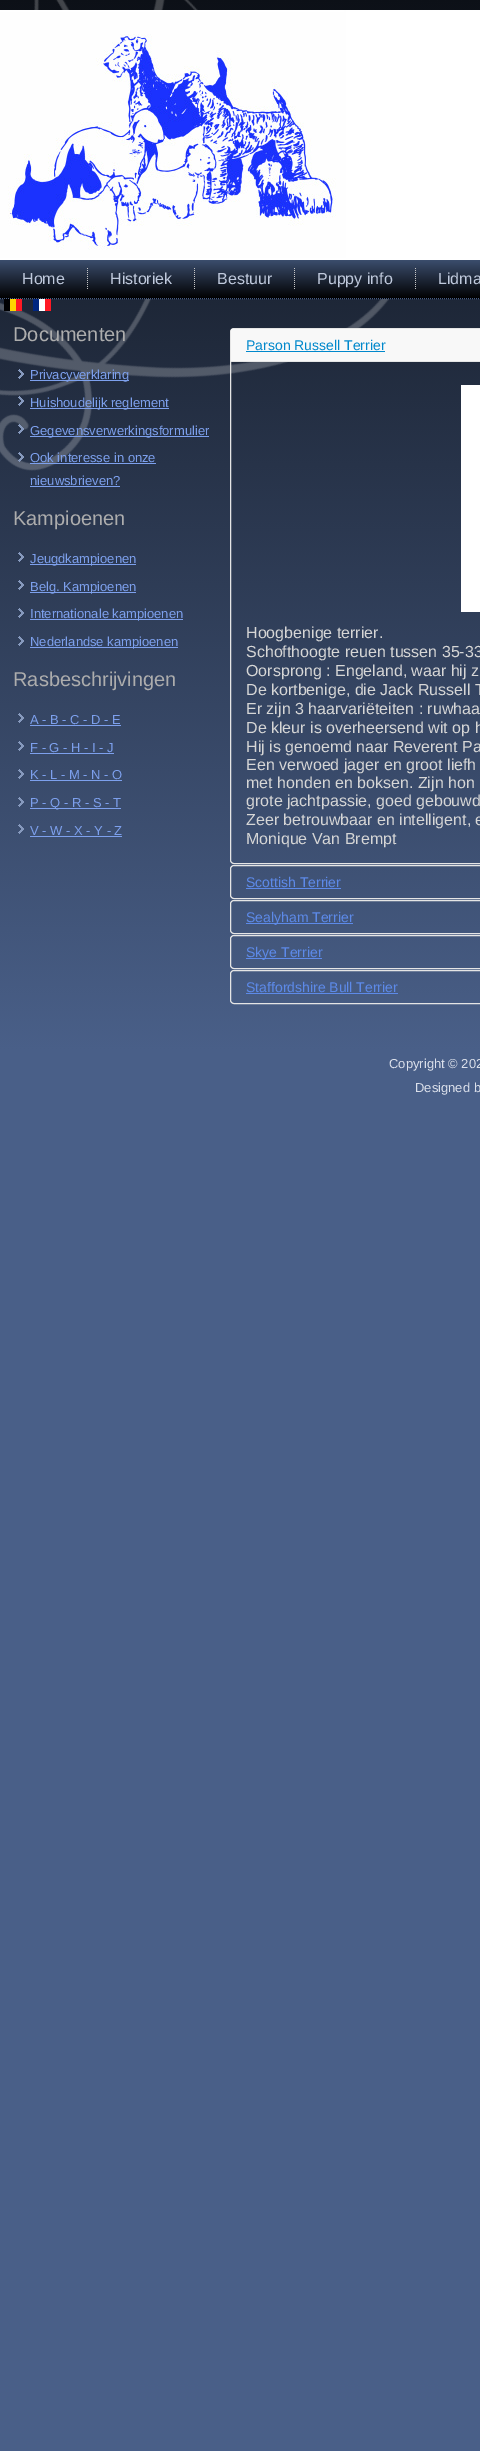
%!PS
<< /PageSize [480 2451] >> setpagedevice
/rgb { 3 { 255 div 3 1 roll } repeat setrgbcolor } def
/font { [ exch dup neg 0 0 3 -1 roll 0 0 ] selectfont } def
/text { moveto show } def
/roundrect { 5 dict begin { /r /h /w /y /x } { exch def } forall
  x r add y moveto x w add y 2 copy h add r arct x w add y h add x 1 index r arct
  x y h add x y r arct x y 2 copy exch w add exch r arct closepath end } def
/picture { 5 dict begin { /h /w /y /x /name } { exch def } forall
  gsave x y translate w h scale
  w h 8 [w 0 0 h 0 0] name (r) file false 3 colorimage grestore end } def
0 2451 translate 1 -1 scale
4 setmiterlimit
255 255 255 rgb
0 0 480 2451 rectfill
(img_01.rgb) 0 0 480 2451 picture
(img_02.rgb) 0 10 480 250 picture
gsave 0 260 moveto 480 0 rlineto 0 39 rlineto -480 0 rlineto closepath clip newpath
<< /ShadingType 2 /ColorSpace /DeviceRGB /Coords [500 260 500 299] /Extend [true true] /Function << /FunctionType 2 /Domain [0 1] /C0 [0.231 0.302 0.427] /C1 [0 0 0] /N 1 >> >> shfill grestore
73 95 136 rgb
[1 1] 0 setdash
0 298.5 moveto 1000 0 rlineto stroke
(img_03.rgb) 87 268 1 21 picture
(img_03.rgb) 194 268 1 21 picture
(img_03.rgb) 294 268 1 21 picture
(img_03.rgb) 415 268 1 21 picture
(img_04.rgb) 4 299 18 12 picture
(img_05.rgb) 33 299 18 12 picture
(img_06.rgb) 18 369 6 10 picture
125 160 237 rgb
30 380 99 1 rectfill
(img_07.rgb) 18 396 6 10 picture
30 408 139 1 rectfill
(img_08.rgb) 18 424 6 10 picture
30 436 179 1 rectfill
(img_09.rgb) 18 452 6 10 picture
30 463 126 1 rectfill
30 486 90 1 rectfill
(img_10.rgb) 18 552 6 10 picture
30 564 106 1 rectfill
(img_11.rgb) 18 580 6 10 picture
30 592 106 1 rectfill
(img_12.rgb) 18 608 6 10 picture
30 619 153 1 rectfill
(img_13.rgb) 18 636 6 10 picture
30 647 148 1 rectfill
(img_14.rgb) 18 713 6 10 picture
30 725 91 1 rectfill
(img_15.rgb) 18 741 6 10 picture
30 753 84 1 rectfill
(img_16.rgb) 18 769 6 10 picture
30 780 92 1 rectfill
(img_17.rgb) 18 797 6 10 picture
30 808 91 1 rectfill
(img_18.rgb) 18 824 6 10 picture
30 836 92 1 rectfill
229 229 229 rgb
[] 0 setdash
230.5 328.5 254 535 3.5 roundrect stroke
248 248 248 rgb
231 329 249 32 rectfill
0 136 204 rgb
246 351 139 1 rectfill
229 229 229 rgb
231 361 249 1 rectfill
255 255 255 rgb
461 385 19 227 rectfill
229 229 229 rgb
230.5 865.5 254 33 3.5 roundrect stroke
93 138 233 rgb
246 888 95 1 rectfill
229 229 229 rgb
230.5 900.5 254 33 3.5 roundrect stroke
93 138 233 rgb
246 923 107 1 rectfill
229 229 229 rgb
230.5 935.5 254 33 3.5 roundrect stroke
93 138 233 rgb
246 958 76 1 rectfill
229 229 229 rgb
230.5 970.5 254 33 3.5 roundrect stroke
93 138 233 rgb
246 993 152 1 rectfill
/LiberationSans-Regular 16 font
192 202 221 rgb
(Home) 22 284 text
(Historiek) 110 284 text
(Bestuur) 217 284 text
(Puppy info) 317 284 text
(Lidma) 438 284 text
/LiberationSans-Regular 20 font
173 173 173 rgb
(Documenten) 13 341 text
/LiberationSans-Regular 13 font
125 160 237 rgb
(Privacyverklaring) 30 379 text
(Huishoudelijk reglement) 30 407 text
(Gegevensverwerkingsformulier) 30 435 text
(Ook interesse in onze) 30 462 text
(nieuwsbrieven?) 30 485 text
/LiberationSans-Regular 20 font
173 173 173 rgb
(Kampioenen) 13 525 text
/LiberationSans-Regular 13 font
125 160 237 rgb
(Jeugdkampioenen) 30 563 text
(Belg. Kampioenen) 30 591 text
(Internationale kampioenen) 30 618 text
(Nederlandse kampioenen) 30 646 text
/LiberationSans-Regular 20 font
173 173 173 rgb
(Rasbeschrijvingen) 13 686 text
/LiberationSans-Regular 13 font
125 160 237 rgb
(A - B - C - D - E) 30 724 text
(F - G - H - I - J) 30 752 text
(K - L - M - N - O) 30 779 text
(P - Q - R - S - T) 30 807 text
(V - W - X - Y - Z) 30 835 text
/LiberationSans-Regular 14 font
0 136 204 rgb
(Parson Russell Terrier) 246 350 text
/LiberationSans-Regular 16 font
214 214 214 rgb
(Hoogbenige terrier.) 246 638 text
(Schofthoogte reuen tussen 35-33) 246 657 text
(Oorsprong : Engeland, waar hij z) 246 676 text
(De kortbenige, die Jack Russell T) 246 695 text
(Er zijn 3 haarvariëteiten : ruwhaa) 246 714 text
(De kleur is overheersend wit op h) 246 733 text
(Hij is genoemd naar Reverent Pa) 246 752 text
(Een verwoed jager en groot liefh) 246 770 text
(met honden en boksen. Zijn hon) 246 788 text
(grote jachtpassie, goed gebouwd) 246 806 text
(Zeer betrouwbaar en intelligent, e) 246 825 text
(Monique Van Brempt) 246 844 text
/LiberationSans-Regular 14 font
93 138 233 rgb
(Scottish Terrier) 246 887 text
(Sealyham Terrier) 246 922 text
(Skye Terrier) 246 957 text
(Staffordshire Bull Terrier) 246 992 text
/LiberationSans-Regular 13 font
219 224 235 rgb
(Copyright © 202) 389 1068 text
(Designed b) 415 1092 text
showpage
